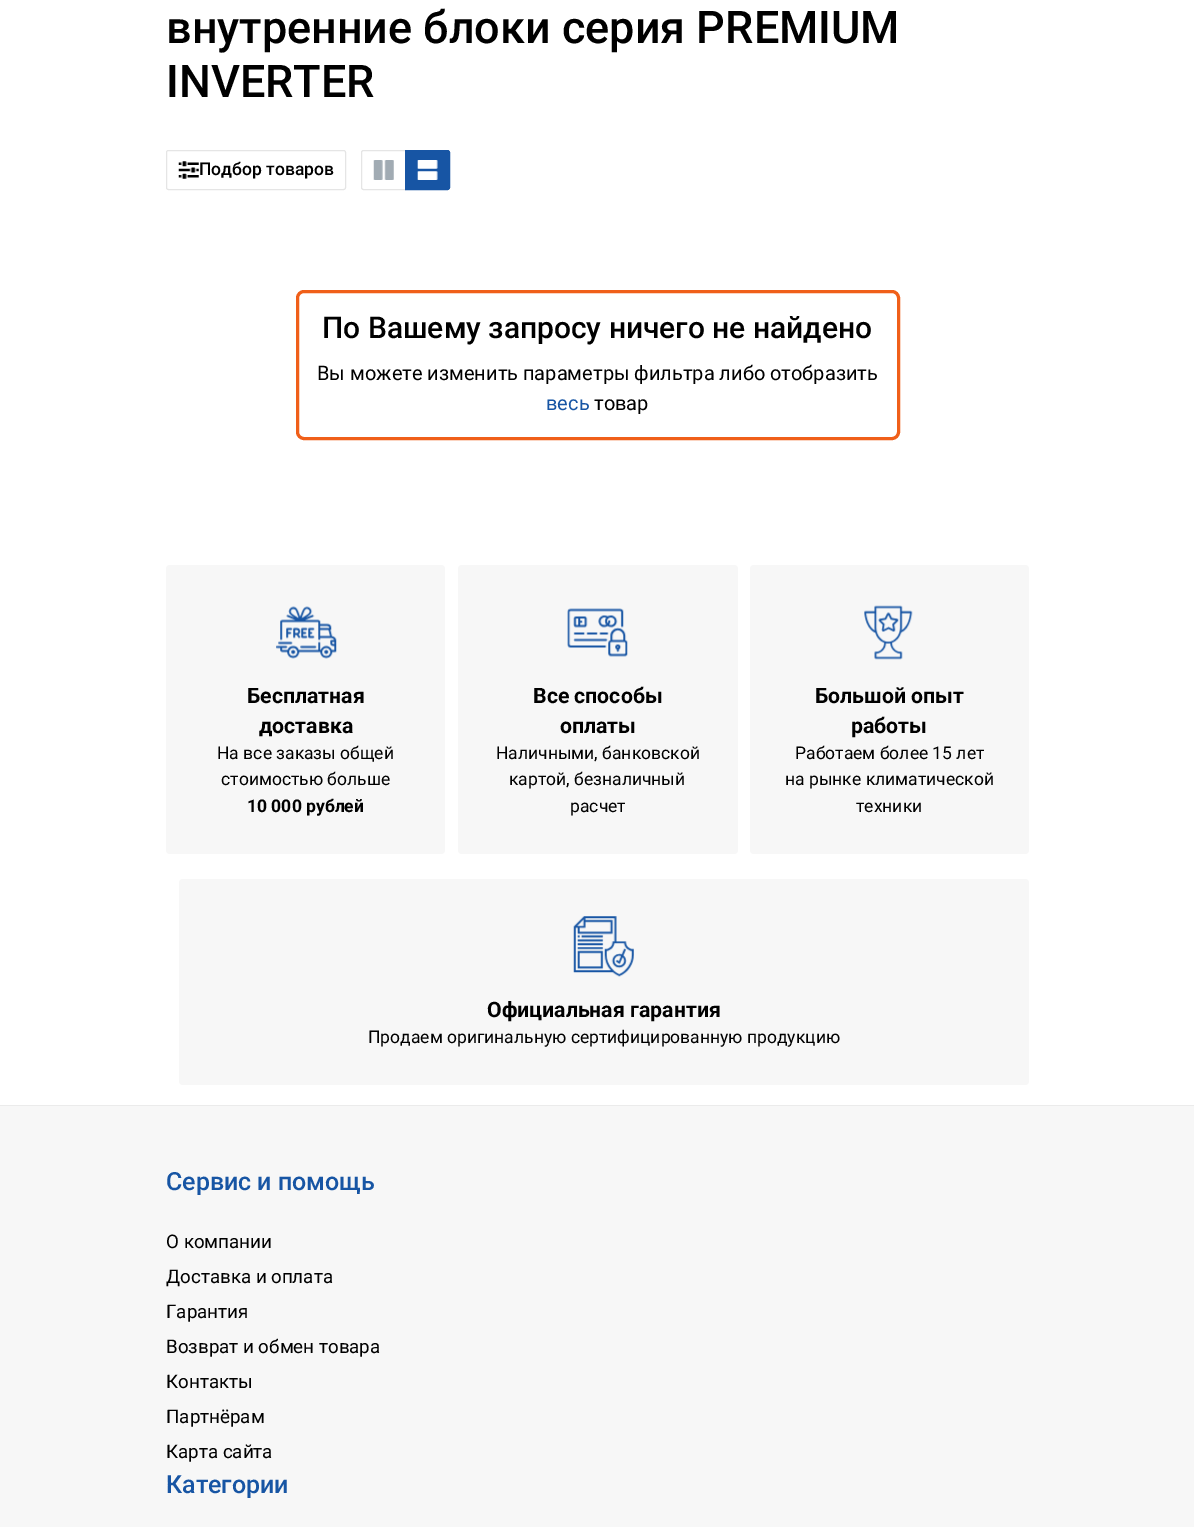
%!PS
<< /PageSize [1194 1527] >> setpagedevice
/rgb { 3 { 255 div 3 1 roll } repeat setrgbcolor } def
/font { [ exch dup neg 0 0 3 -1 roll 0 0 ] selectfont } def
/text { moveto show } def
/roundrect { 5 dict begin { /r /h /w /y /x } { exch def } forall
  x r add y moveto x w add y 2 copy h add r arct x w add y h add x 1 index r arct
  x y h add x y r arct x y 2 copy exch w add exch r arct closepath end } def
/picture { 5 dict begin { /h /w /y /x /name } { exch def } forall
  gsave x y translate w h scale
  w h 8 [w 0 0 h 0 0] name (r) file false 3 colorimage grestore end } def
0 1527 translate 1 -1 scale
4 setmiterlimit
255 255 255 rgb
0 0 1194 1527 rectfill
229 229 229 rgb
166.5 150.5 179 39 2 roundrect stroke
(img_01.rgb) 178 161 21 18 picture
363.5 150.5 moveto 42 0 rlineto 0 39 rlineto -42 0 rlineto -1 0 -2 -1 -2 -2 rcurveto 0 -35 rlineto 0 -1 1 -2 2 -2 rcurveto closepath stroke
(img_02.rgb) 373 160 21 20 picture
23 85 164 rgb
405.5 150.5 moveto 42 0 rlineto 1 0 2 1 2 2 rcurveto 0 35 rlineto 0 1 -1 2 -2 2 rcurveto -42 0 rlineto closepath gsave fill grestore
stroke
(img_03.rgb) 417 160 21 20 picture
240 95 25 rgb
3 setlinewidth
297.5 291.5 601 147 6.5 roundrect stroke
247 247 247 rgb
166 565 279 289 4 roundrect fill
(img_04.rgb) 276 606 61 53 picture
458 565 280 289 4 roundrect fill
(img_05.rgb) 567 608 61 49 picture
750 565 279 289 4 roundrect fill
(img_06.rgb) 864 605 49 55 picture
179 879 850 206 4 roundrect fill
(img_07.rgb) 573 916 61 61 picture
0 1106 1194 421 rectfill
235 235 235 rgb
0 1105 1194 1 rectfill
/Roboto-Medium 45 font
0 0 0 rgb
(внутренние блоки серия PREMIUM) 166 43 text
(INVERTER) 166 97 text
/Roboto-Medium 17.5 font
(Подбор товаров) 199 175 text
/Roboto-Medium 30 font
(По Вашему запросу ничего не найдено) 322 338 text
/Roboto-Regular 20 font
(Вы можете изменить параметры фильтра либо отобразить) 317 380 text
23 85 164 rgb
(весь) 546 410 text
0 0 0 rgb
(товар) 594 410 text
/Roboto-Bold 21.25 font
(Бесплатная) 247 703 text
(доставка) 259 733 text
/Roboto-Regular 17.5 font
(На все заказы общей) 217 759 text
(стоимостью больше) 221 785 text
/Roboto-Bold 17.5 font
(10 000 рублей) 247 812 text
/Roboto-Bold 21.25 font
(Все способы) 533 703 text
(оплаты) 560 733 text
/Roboto-Regular 17.5 font
(Наличными, банковской) 496 759 text
(картой, безналичный) 509 785 text
(расчет) 570 812 text
/Roboto-Bold 21.25 font
(Большой опыт) 815 703 text
(работы) 851 733 text
/Roboto-Regular 17.5 font
(Работаем более 15 лет) 795 759 text
(на рынке климатической) 785 785 text
(техники) 856 812 text
/Roboto-Bold 21.25 font
(Официальная гарантия) 487 1017 text
/Roboto-Regular 17.5 font
(Продаем оригинальную сертифицированную продукцию) 368 1043 text
/Roboto-Medium 25 font
23 85 164 rgb
(Сервис и помощь) 166 1190 text
/Roboto-Regular 18.75 font
0 0 0 rgb
(О компании) 166 1248 text
(Доставка и оплата) 166 1283 text
(Гарантия) 166 1318 text
(Возврат и обмен товара) 166 1353 text
(Контакты) 166 1388 text
(Партнёрам) 166 1423 text
(Карта сайта) 166 1458 text
/Roboto-Medium 25 font
23 85 164 rgb
(Категории) 166 1493 text
showpage
